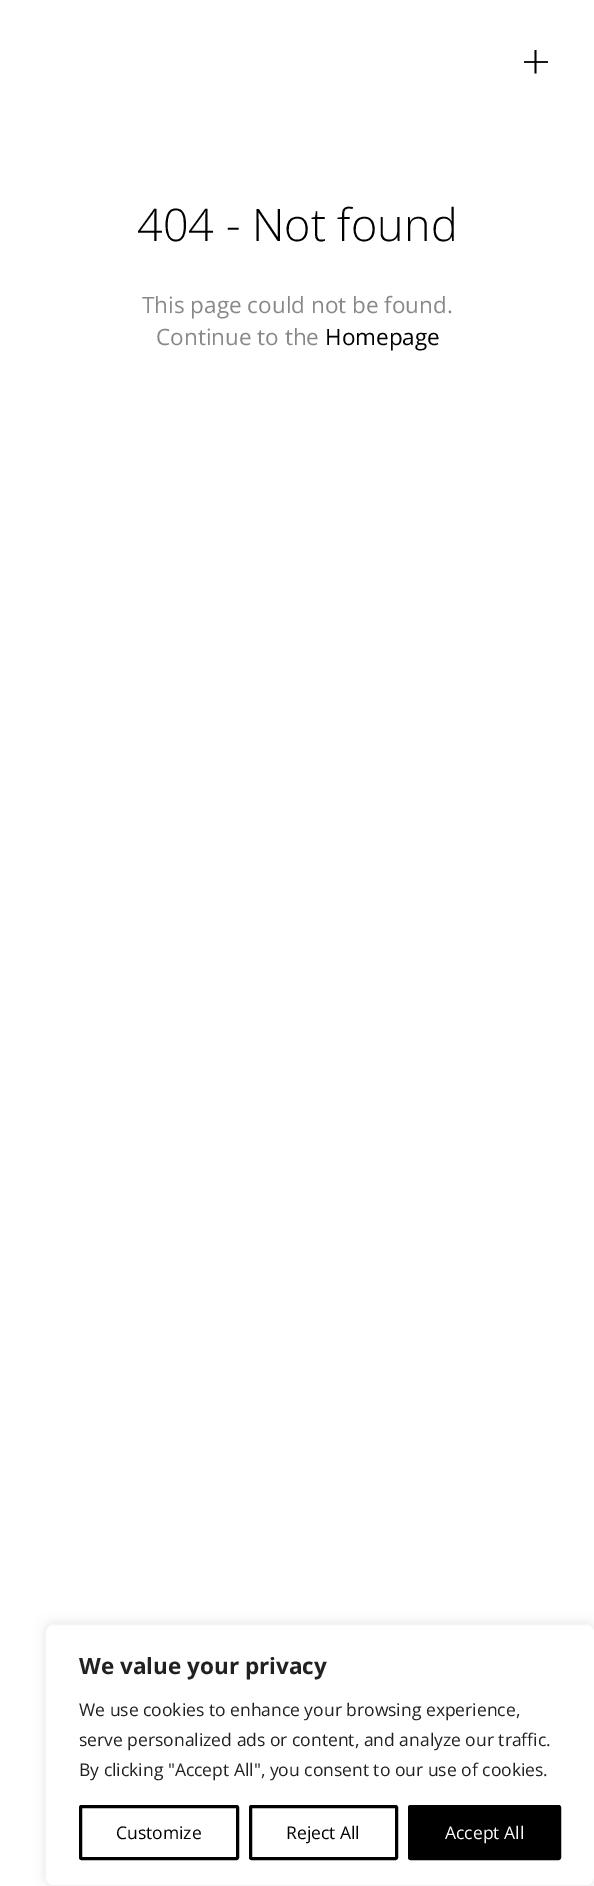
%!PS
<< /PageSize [594 1886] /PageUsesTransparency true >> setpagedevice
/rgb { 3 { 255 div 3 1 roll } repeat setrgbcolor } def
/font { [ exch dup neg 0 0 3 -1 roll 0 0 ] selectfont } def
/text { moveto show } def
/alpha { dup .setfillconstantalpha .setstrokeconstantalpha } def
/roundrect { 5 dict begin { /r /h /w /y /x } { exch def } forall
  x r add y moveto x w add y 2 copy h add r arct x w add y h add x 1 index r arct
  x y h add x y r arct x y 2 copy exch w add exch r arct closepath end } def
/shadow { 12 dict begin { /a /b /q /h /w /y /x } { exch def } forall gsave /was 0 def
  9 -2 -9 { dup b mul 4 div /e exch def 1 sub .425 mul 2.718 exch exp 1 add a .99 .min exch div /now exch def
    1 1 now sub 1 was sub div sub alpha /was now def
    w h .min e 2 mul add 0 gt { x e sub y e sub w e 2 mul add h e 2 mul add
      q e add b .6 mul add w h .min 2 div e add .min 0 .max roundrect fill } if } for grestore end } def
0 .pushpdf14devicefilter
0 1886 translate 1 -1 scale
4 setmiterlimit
255 255 255 rgb
0 0 594 1886 rectfill
26 26 26 rgb
524 61 24 2 rectfill
0 0 0 rgb
1.8 setlinewidth
1 setlinejoin
535.5 73.5 moveto 0 -23.5 rlineto stroke
gsave
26 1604 moveto 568 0 rlineto 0 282 rlineto -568 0 rlineto closepath 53 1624 moveto 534 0 rlineto 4.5 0 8 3.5 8 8 rcurveto 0 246 rlineto 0 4.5 -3.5 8 -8 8 rcurveto -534 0 rlineto -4.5 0 -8 -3.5 -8 -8 rcurveto 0 -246 rlineto 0 -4.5 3.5 -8 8 -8 rcurveto closepath eoclip newpath
172 171 171 rgb
45 1623 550 262 8 6 0.3 shadow
grestore
244 244 244 rgb
1 setlinewidth
0 setlinejoin
45.5 1624.5 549 261 7.5 roundrect stroke
0 0 0 rgb
3 setlinewidth
80.5 1806.5 157 52 1 roundrect stroke
250.5 1806.5 146 52 1 roundrect stroke
409.5 1806.5 150 52 1 roundrect gsave fill grestore
stroke
/OpenSans-Light 45 font
(404 - Not found) 137 241 text
/OpenSans-Regular 22.5 font
136 136 136 rgb
(This page could not be found.) 142 313 text
(Continue to the) 156 345 text
0 0 0 rgb
(Homepage) 325 345 text
/OpenSans-Bold 22.5 font
33 33 33 rgb
(We value your privacy) 79 1674 text
/OpenSans-Regular 17.5 font
(We use cookies to enhance your browsing experience,) 79 1716 text
(serve personalized ads or content, and analyze our traffic.) 79 1746 text
(By clicking "Accept All", you consent to our use of cookies.) 79 1776 text
0 0 0 rgb
(Customize) 116 1839 text
(Reject All) 286 1839 text
255 255 255 rgb
(Accept All) 445 1839 text
.poppdf14devicefilter showpage
